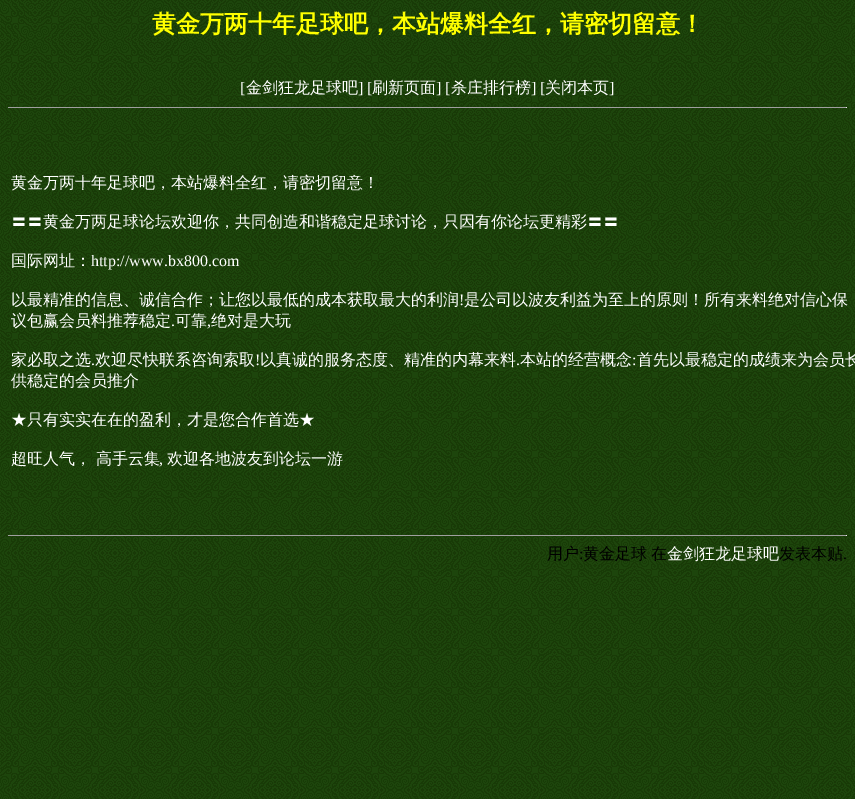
%!PS
<< /PageSize [855 799] >> setpagedevice
/rgb { 3 { 255 div 3 1 roll } repeat setrgbcolor } def
/font { [ exch dup neg 0 0 3 -1 roll 0 0 ] selectfont } def
/text { moveto show } def
/picture { 5 dict begin { /h /w /y /x /name } { exch def } forall
  gsave x y translate w h scale
  w h 8 [w 0 0 h 0 0] name (r) file false 3 colorimage grestore end } def
0 799 translate 1 -1 scale
4 setmiterlimit
255 255 255 rgb
0 0 855 799 rectfill
(img_01.rgb) 0 0 855 799 picture
159 159 159 rgb
8 107 839 1 rectfill
238 238 238 rgb
846 107 1 1 rectfill
159 159 159 rgb
8 535 839 1 rectfill
238 238 238 rgb
846 535 1 1 rectfill
/WenQuanYiZenHei-Bold 24 font
255 255 0 rgb
(黄金万两十年足球吧，本站爆料全红，请密切留意！) 152 32 text
/LiberationSerif-Regular 16 font
255 255 255 rgb
([) 240 93 text
/WenQuanYiZenHei-Medium 16 font
(金剑狂龙足球吧) 246 93 text
/LiberationSerif-Regular 16 font
(] [) 358 93 text
/WenQuanYiZenHei-Medium 16 font
(刷新页面) 372 93 text
/LiberationSerif-Regular 16 font
(] [) 436 93 text
/WenQuanYiZenHei-Medium 16 font
(杀庄排行榜) 451 93 text
/LiberationSerif-Regular 16 font
(] [) 531 93 text
/WenQuanYiZenHei-Medium 16 font
(关闭本页) 545 93 text
/LiberationSerif-Regular 16 font
(]) 609 93 text
/WenQuanYiZenHei-Medium 16 font
(黄金万两十年足球吧，本站爆料全红，请密切留意！) 11 188 text
(〓〓黄金万两足球论坛欢迎你，共同创造和谐稳定足球讨论，只因有你论坛更精彩〓〓) 11 227 text
(国际网址：) 11 266 text
/LiberationSerif-Regular 16 font
(http://www.bx800.com) 91 266 text
/WenQuanYiZenHei-Medium 16 font
(以最精准的信息、诚信合作；让您以最低的成本获取最大的利润) 11 305 text
/LiberationSerif-Regular 16 font
(!) 459 305 text
/WenQuanYiZenHei-Medium 16 font
(是公司以波友利益为至上的原则！所有来料绝对信心保) 464 305 text
(议包赢会员料推荐稳定) 11 326 text
/LiberationSerif-Regular 16 font
(.) 171 326 text
/WenQuanYiZenHei-Medium 16 font
(可靠) 175 326 text
/LiberationSerif-Regular 16 font
(,) 207 326 text
/WenQuanYiZenHei-Medium 16 font
(绝对是大玩) 211 326 text
(家必取之选) 11 365 text
/LiberationSerif-Regular 16 font
(.) 91 365 text
/WenQuanYiZenHei-Medium 16 font
(欢迎尽快联系咨询索取) 95 365 text
/LiberationSerif-Regular 16 font
(!) 255 365 text
/WenQuanYiZenHei-Medium 16 font
(以真诚的服务态度、精准的内幕来料) 260 365 text
/LiberationSerif-Regular 16 font
(.) 516 365 text
/WenQuanYiZenHei-Medium 16 font
(本站的经营概念) 520 365 text
/LiberationSerif-Regular 16 font
(:) 632 365 text
/WenQuanYiZenHei-Medium 16 font
(首先以最稳定的成绩来为会员长) 637 365 text
(供稳定的会员推介) 11 386 text
(★只有实实在在的盈利，才是您合作首选★) 11 425 text
(超旺人气， 高手云集) 11 464 text
/LiberationSerif-Regular 16 font
(,) 159 464 text
/WenQuanYiZenHei-Medium 16 font
(欢迎各地波友到论坛一游) 167 464 text
0 0 0 rgb
(用户) 547 559 text
/LiberationSerif-Regular 16 font
(:) 579 559 text
/WenQuanYiZenHei-Medium 16 font
(黄金足球) 583 559 text
(在) 651 559 text
255 255 255 rgb
(金剑狂龙足球吧) 667 559 text
0 0 0 rgb
(发表本贴) 779 559 text
/LiberationSerif-Regular 16 font
(.) 843 559 text
showpage
